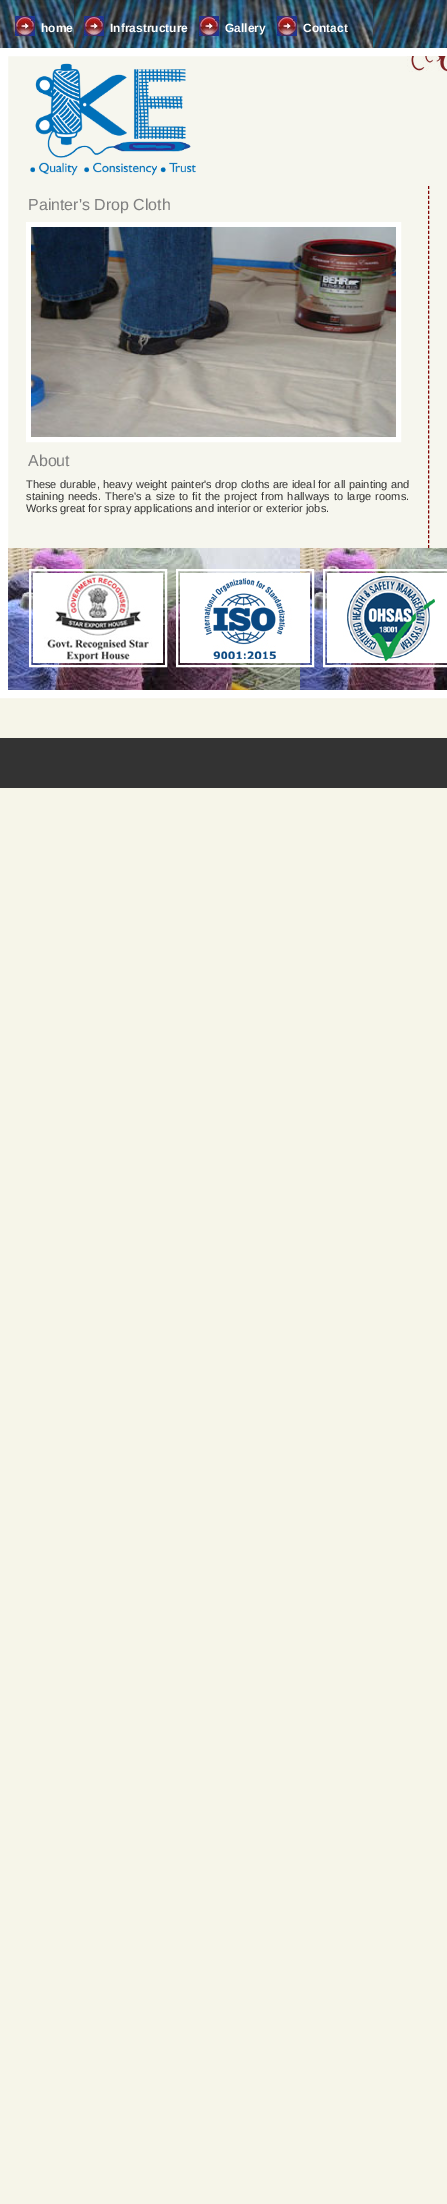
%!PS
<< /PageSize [447 2204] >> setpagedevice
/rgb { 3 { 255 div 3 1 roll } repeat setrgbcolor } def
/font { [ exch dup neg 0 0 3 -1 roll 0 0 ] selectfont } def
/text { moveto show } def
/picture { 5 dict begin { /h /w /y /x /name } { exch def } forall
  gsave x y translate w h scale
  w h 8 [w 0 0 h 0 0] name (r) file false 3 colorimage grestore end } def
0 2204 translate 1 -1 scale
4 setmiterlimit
246 245 233 rgb
0 0 447 2204 rectfill
(img_01.rgb) 0 0 447 48 picture
(img_02.rgb) 15 16 20 20 picture
(img_02.rgb) 84 16 20 20 picture
(img_02.rgb) 199 16 20 20 picture
(img_02.rgb) 277 16 20 20 picture
246 246 238 rgb
8 56 439 492 rectfill
255 255 255 rgb
8 setlinewidth
4 52 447 642 rectstroke
(img_03.rgb) 407 56 40 16 picture
(img_04.rgb) 30 63 166 113 picture
128 0 0 rgb
1 setlinewidth
[3 1.99] 0 setdash
428.5 186 moveto 0 362 rlineto stroke
255 255 255 rgb
5 setlinewidth
[] 0 setdash
28.5 224.5 370 215 rectstroke
(img_05.rgb) 31 227 365 210 picture
(img_06.rgb) 8 548 439 142 picture
2 setlinewidth
30 570 136 96 rectstroke
177 570 136 96 rectstroke
324 570 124 96 rectstroke
(img_07.rgb) 33 573 130 90 picture
(img_08.rgb) 180 573 130 90 picture
(img_09.rgb) 327 573 120 90 picture
51 51 51 rgb
0 738 447 50 rectfill
/LiberationSans-Bold 12 font
255 255 255 rgb
(home) 41 32 text
(Infrastructure) 110 32 text
(Gallery) 225 32 text
(Contact) 303 32 text
/LiberationSans-Regular 16 font
128 128 128 rgb
(Painter's Drop Cloth) 28 210 text
(About) 28 466 text
/LiberationSans-Regular 11 font
51 51 51 rgb
26 488 moveto 0.25 0 32 (These durable, heavy weight painter's drop cloths are ideal for all painting and) widthshow
26 500 moveto 1 0 32 (staining needs. There's a size to fit the project from hallways to large rooms.) widthshow
(Works great for spray applications and interior or exterior jobs.) 26 512 text
showpage
